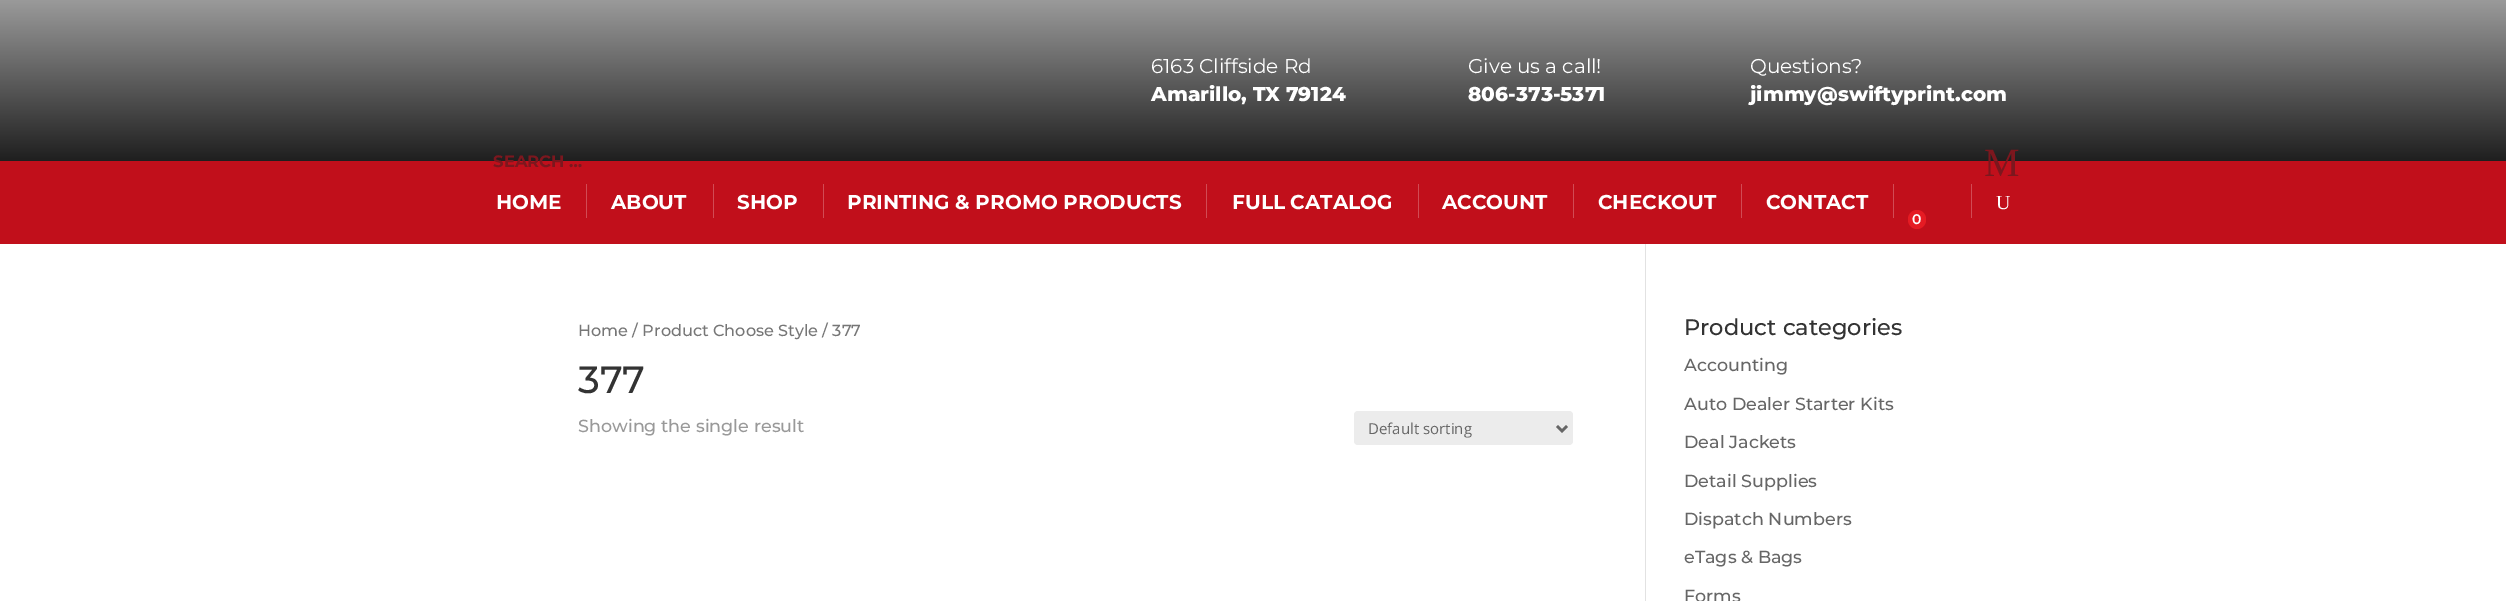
%!PS
<< /PageSize [2506 601] >> setpagedevice
/rgb { 3 { 255 div 3 1 roll } repeat setrgbcolor } def
/font { [ exch dup neg 0 0 3 -1 roll 0 0 ] selectfont } def
/text { moveto show } def
/roundrect { 5 dict begin { /r /h /w /y /x } { exch def } forall
  x r add y moveto x w add y 2 copy h add r arct x w add y h add x 1 index r arct
  x y h add x y r arct x y 2 copy exch w add exch r arct closepath end } def
0 601 translate 1 -1 scale
4 setmiterlimit
255 255 255 rgb
0 0 2506 601 rectfill
gsave 0 0 moveto 2506 0 rlineto 0 161 rlineto -2506 0 rlineto closepath clip newpath
<< /ShadingType 2 /ColorSpace /DeviceRGB /Coords [1253 0 1253 161] /Extend [true true] /Function << /FunctionType 2 /Domain [0 1] /C0 [0.604 0.604 0.604] /C1 [0.122 0.122 0.122] /N 1 >> >> shfill grestore
193 15 27 rgb
0 161 2506 83 rectfill
209 75 84 rgb
586 184 1 34 rectfill
713 184 1 34 rectfill
823 184 1 34 rectfill
1206 184 1 34 rectfill
1418 184 1 34 rectfill
1573 184 1 34 rectfill
1741 184 1 34 rectfill
1971 184 1 34 rectfill
1893 184 1 34 rectfill
229 27 35 rgb
1908 210 18 19 9 roundrect fill
226 226 226 rgb
1645 244 1 357 rectfill
236 236 236 rgb
1354 411 219 34 4 roundrect fill
102 102 102 rgb
2.5 setlinewidth
1557 426 moveto 5 5 rlineto 5 -5 rlineto stroke
/Montserrat-Regular 20 font
255 255 255 rgb
(6163 Cliffside Rd) 1151 73 text
/Montserrat-ExtraBold 20 font
(Amarillo, TX 79124) 1151 101 text
/Montserrat-Regular 20 font
(Give us a call!) 1468 73 text
/Montserrat-ExtraBold 20 font
(806-373-5371) 1468 101 text
/Montserrat-Regular 20 font
(Questions?) 1750 73 text
/Montserrat-ExtraBold 20 font
(jimmy@swiftyprint.com) 1750 101 text
/Montserrat-Bold 16.5 font
124 23 30 rgb
(SEARCH …) 493 167 text
/LiberationSerif-Regular 40 font
(M) 1984 176 text
/Montserrat-Bold 20 font
255 255 255 rgb
(HOME) 496 209 text
(ABOUT) 611 209 text
(SHOP) 737 209 text
(PRINTING & PROMO PRODUCTS) 847 209 text
(FULL CATALOG) 1232 209 text
(ACCOUNT) 1442 209 text
(CHECKOUT) 1598 209 text
(CONTACT) 1766 209 text
/LiberationSerif-Regular 20 font
(U) 1996 209 text
/Montserrat-SemiBold 14 font
(0) 1912 224 text
/Montserrat-Medium 16.1 font
118 118 118 rgb
(Home / Product Choose Style / 377) 578 336 text
/Montserrat-Medium 38 font
51 51 51 rgb
(377) 578 393 text
/Montserrat-Medium 17.5 font
153 153 153 rgb
(Showing the single result) 578 432 text
/OpenSans-Regular 15 font
102 102 102 rgb
(Default sorting) 1368 434 text
/Montserrat-Medium 22.5 font
51 51 51 rgb
(Product categories) 1684 335 text
/Montserrat-Medium 17.5 font
102 102 102 rgb
(Accounting) 1684 371 text
(Auto Dealer Starter Kits) 1684 410 text
(Deal Jackets) 1684 448 text
(Detail Supplies) 1684 487 text
(Dispatch Numbers) 1684 525 text
(eTags & Bags) 1684 563 text
(Forms) 1684 602 text
showpage
